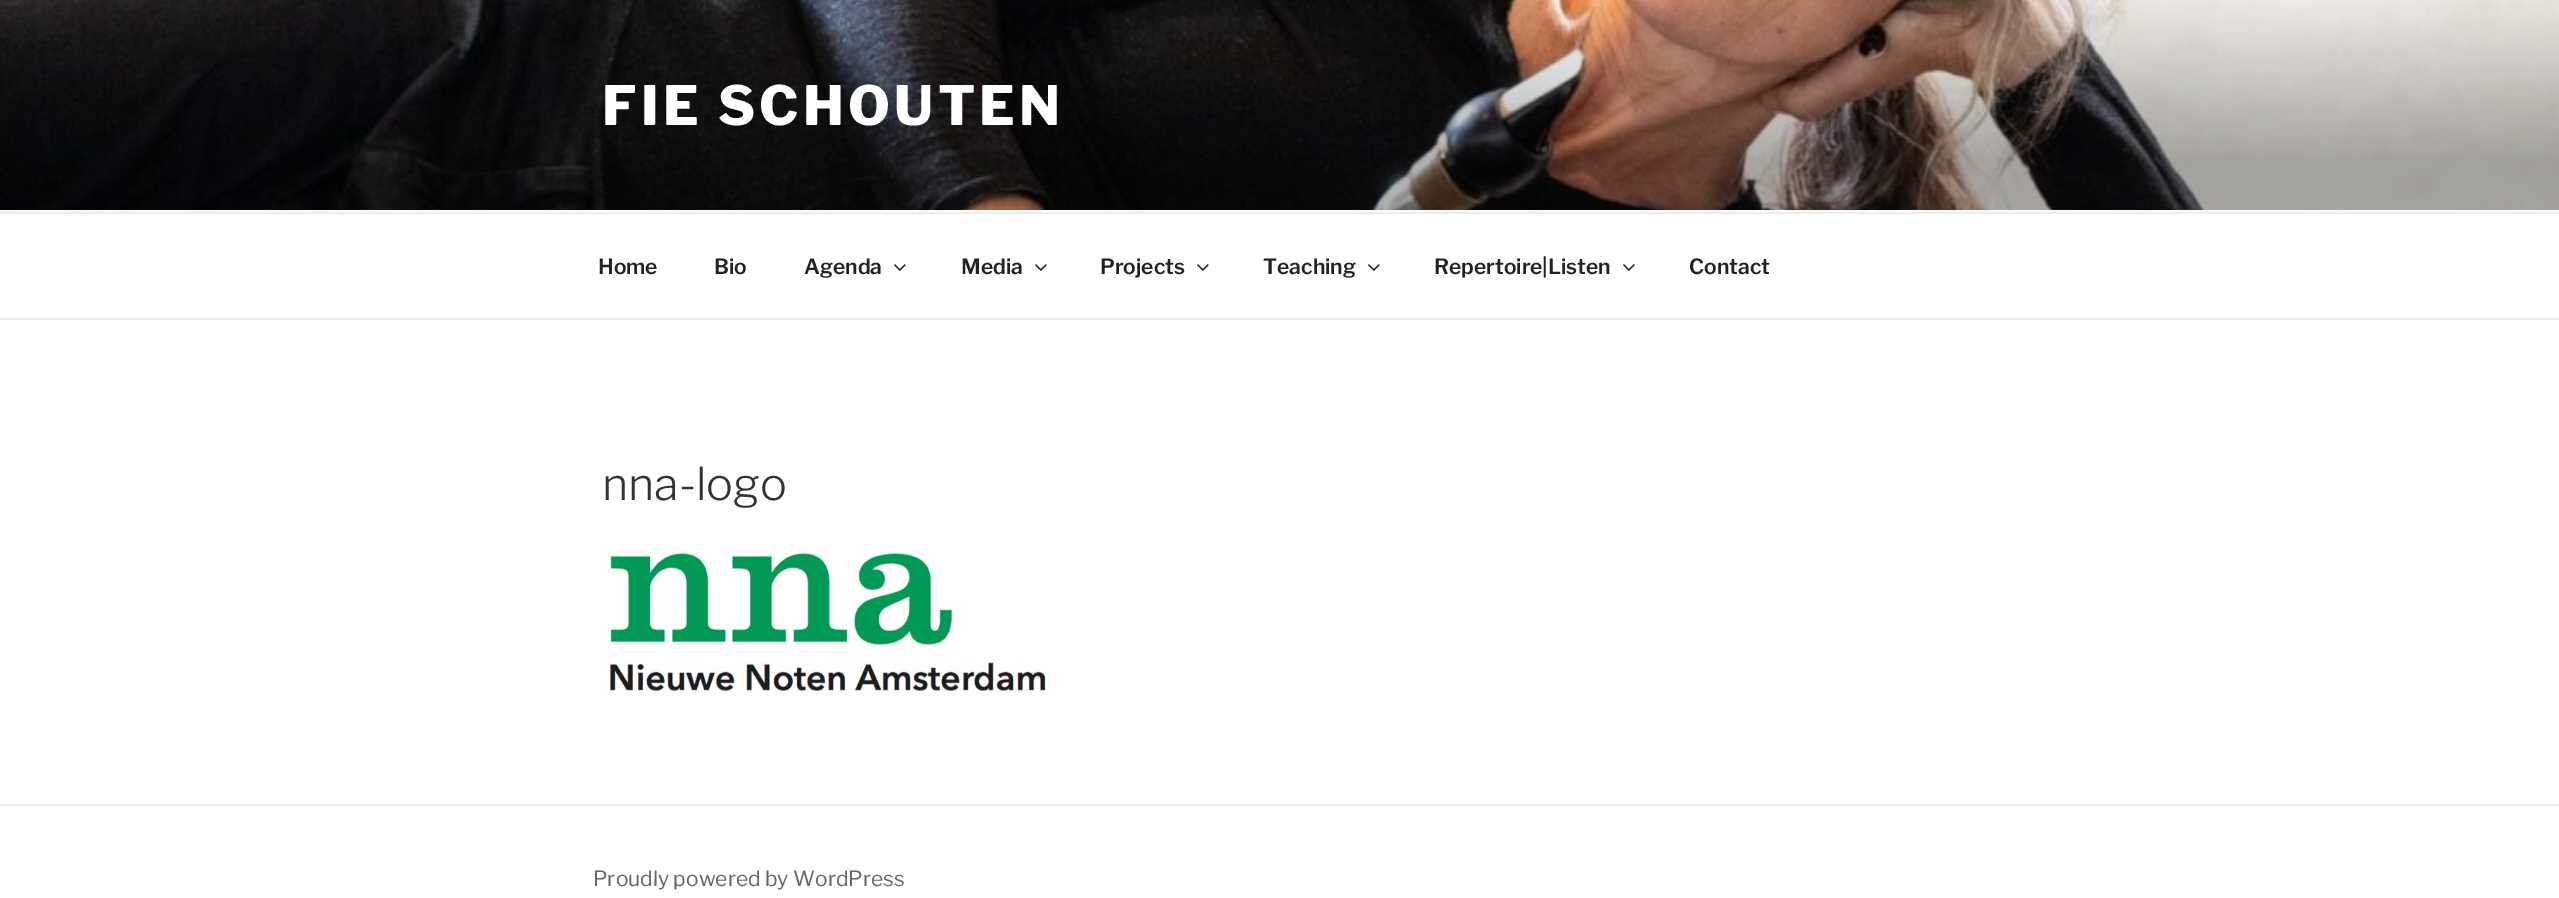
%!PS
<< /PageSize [2559 898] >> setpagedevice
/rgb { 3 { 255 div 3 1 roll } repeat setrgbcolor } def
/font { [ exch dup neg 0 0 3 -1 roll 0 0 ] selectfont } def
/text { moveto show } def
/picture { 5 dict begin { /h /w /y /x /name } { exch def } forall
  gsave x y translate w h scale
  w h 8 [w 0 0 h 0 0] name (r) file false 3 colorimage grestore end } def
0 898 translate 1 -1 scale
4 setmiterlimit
255 255 255 rgb
0 0 2559 898 rectfill
250 250 250 rgb
0 210 2559 2 rectfill
(img_01.rgb) 0 0 2559 210 picture
238 238 238 rgb
0 212 2559 2 rectfill
0 318 2559 2 rectfill
(img_02.rgb) 894 264 12 7 picture
(img_02.rgb) 1035 264 12 7 picture
(img_02.rgb) 1197 264 12 7 picture
(img_02.rgb) 1368 264 12 7 picture
(img_02.rgb) 1623 264 12 7 picture
(img_03.rgb) 601 550 449 144 picture
0 804 2559 2 rectfill
/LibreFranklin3-Thin 54 font
255 255 255 rgb
602 125 moveto 4.25 0 (FIE SCHOUTEN) ashow
/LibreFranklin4-Thin 21 font
34 34 34 rgb
(Home) 598 274 text
(Bio) 714 274 text
(Agenda) 804 274 text
(Media) 961 274 text
(Projects) 1100 274 text
(Teaching) 1263 274 text
(Repertoire|Listen) 1434 274 text
(Contact) 1689 274 text
/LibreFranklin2-Thin 45 font
51 51 51 rgb
(nna-logo) 602 500 text
/LibreFranklin-Thin 21 font
102 102 102 rgb
(Proudly powered by WordPress) 593 886 text
showpage
